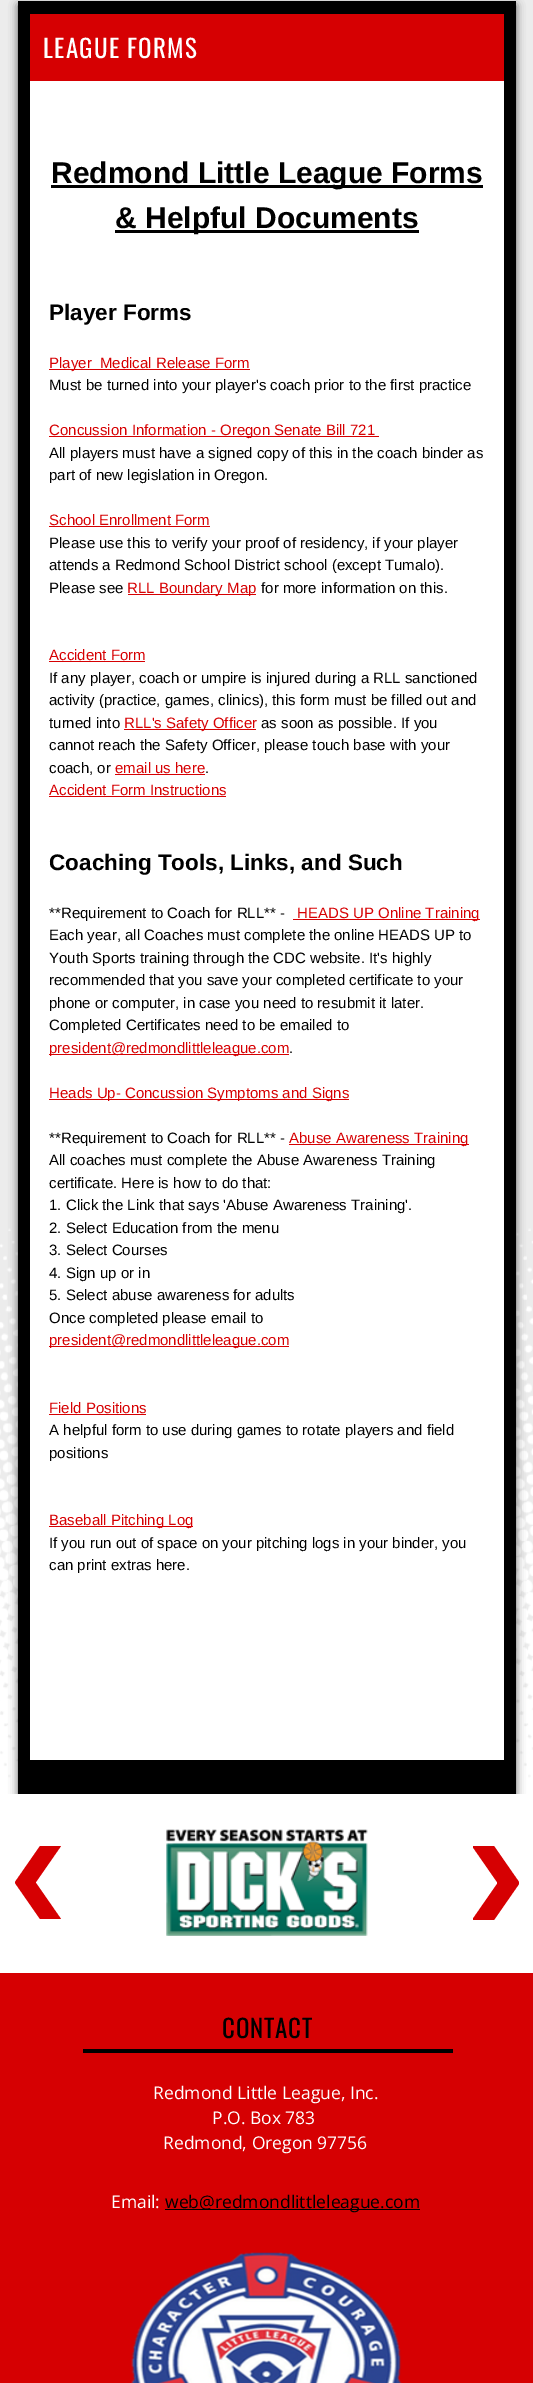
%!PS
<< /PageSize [533 2383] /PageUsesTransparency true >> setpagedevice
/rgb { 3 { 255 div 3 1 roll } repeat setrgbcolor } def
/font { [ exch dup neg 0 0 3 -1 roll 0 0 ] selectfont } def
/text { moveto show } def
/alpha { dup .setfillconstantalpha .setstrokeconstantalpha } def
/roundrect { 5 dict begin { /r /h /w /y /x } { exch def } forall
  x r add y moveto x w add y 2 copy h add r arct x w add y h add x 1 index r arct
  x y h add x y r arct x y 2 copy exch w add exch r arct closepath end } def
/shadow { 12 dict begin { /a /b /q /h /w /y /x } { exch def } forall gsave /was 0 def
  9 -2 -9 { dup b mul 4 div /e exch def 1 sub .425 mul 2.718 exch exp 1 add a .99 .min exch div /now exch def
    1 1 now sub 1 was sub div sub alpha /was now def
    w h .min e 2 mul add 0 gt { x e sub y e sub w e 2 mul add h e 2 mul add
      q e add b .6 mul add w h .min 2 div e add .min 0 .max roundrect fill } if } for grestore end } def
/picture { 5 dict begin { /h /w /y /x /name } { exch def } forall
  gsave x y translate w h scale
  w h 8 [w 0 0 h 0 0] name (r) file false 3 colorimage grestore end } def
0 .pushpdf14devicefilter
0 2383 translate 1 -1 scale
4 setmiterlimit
236 236 236 rgb
0 0 533 2383 rectfill
(img_01.rgb) 0 1228 533 566 picture
0 0 0 rgb
18 5 498 1794 0 4.5 0.61 shadow
18 1 498 1793 rectfill
214 0 2 rgb
30 14 474 67 rectfill
255 255 255 rgb
30 81 474 1679 rectfill
0 0 0 rgb
51 185 432 3 rectfill
115 230 304 3 rectfill
214 0 2 rgb
49 369 201 1 rectfill
49 436 330 1 rectfill
49 526 161 1 rectfill
128 594 128 1 rectfill
49 661 96 1 rectfill
124 729 132 1 rectfill
115 774 90 1 rectfill
49 796 177 1 rectfill
293 919 187 1 rectfill
49 1054 240 1 rectfill
49 1099 300 1 rectfill
289 1144 180 1 rectfill
49 1346 240 1 rectfill
49 1414 97 1 rectfill
49 1526 144 1 rectfill
255 255 255 rgb
0 1794 533 179 rectfill
214 0 2 rgb
61 1919 moveto -21 0 rlineto -25 -36 rlineto 0 -1 rlineto 25 -36 rlineto 21 0 rlineto -25 36 rlineto 0 1 rlineto closepath fill
(img_02.rgb) 166 1829 202 107 picture
gsave
473 1846 46 74 rectclip
472 1846 moveto 22 0 rlineto 25 36 rlineto 0 2 rlineto -25 36 rlineto -22 0 rlineto 25 -36 rlineto 0 -2 rlineto closepath fill
grestore
0 1973 533 410 rectfill
0 0 0 rgb
83 2049 370 4 rectfill
165 2209 255 1 rectfill
(img_03.rgb) 131 2252 271 131 picture
/Oswald-Regular 25 font
255 255 255 rgb
43 58 moveto 1.25 0 (LEAGUE FORMS) ashow
/LiberationSans-Bold 30 font
0 0 0 rgb
(Redmond Little League Forms) 51 183 text
(& Helpful Documents) 115 228 text
/LiberationSans-Bold 22.5 font
(Player Forms) 49 320 text
/LiberationSans-Regular 15 font
214 0 2 rgb
(Player  Medical Release Form) 49 368 text
0 0 0 rgb
(Must be turned into your player's coach prior to the first practice) 49 390 text
214 0 2 rgb
(Concussion Information - Oregon Senate Bill 721) 49 435 text
0 0 0 rgb
(All players must have a signed copy of this in the coach binder as) 49 458 text
(part of new legislation in Oregon.) 49 480 text
214 0 2 rgb
(School Enrollment Form) 49 525 text
0 0 0 rgb
(Please use this to verify your proof of residency, if your player) 49 548 text
(attends a Redmond School District school \(except Tumalo\).) 49 570 text
(Please see) 49 593 text
214 0 2 rgb
(RLL Boundary Map) 127 593 text
0 0 0 rgb
(for more information on this.) 261 593 text
214 0 2 rgb
(Accident Form) 49 660 text
0 0 0 rgb
(If any player, coach or umpire is injured during a RLL sanctioned) 49 683 text
(activity \(practice, games, clinics\), this form must be filled out and) 49 705 text
(turned into) 49 728 text
214 0 2 rgb
(RLL's Safety Officer) 124 728 text
0 0 0 rgb
(as soon as possible. If you) 261 728 text
(cannot reach the Safety Officer, please touch base with your) 49 750 text
(coach, or) 49 773 text
214 0 2 rgb
(email us here) 115 773 text
0 0 0 rgb
(.) 205 773 text
214 0 2 rgb
(Accident Form Instructions) 49 795 text
/LiberationSans-Bold 22.5 font
0 0 0 rgb
(Coaching Tools, Links, and Such) 49 870 text
/LiberationSans-Regular 15 font
(**Requirement to Coach for RLL** -) 49 918 text
214 0 2 rgb
(HEADS UP Online Training) 297 918 text
0 0 0 rgb
(Each year, all Coaches must complete the online HEADS UP to) 49 940 text
(Youth Sports training through the CDC website. It's highly) 49 963 text
(recommended that you save your completed certificate to your) 49 985 text
(phone or computer, in case you need to resubmit it later.) 49 1008 text
(Completed Certificates need to be emailed to) 49 1030 text
214 0 2 rgb
(president@redmondlittleleague.com) 49 1053 text
0 0 0 rgb
(.) 289 1053 text
214 0 2 rgb
(Heads Up- Concussion Symptoms and Signs) 49 1098 text
0 0 0 rgb
(**Requirement to Coach for RLL** -) 49 1143 text
214 0 2 rgb
(Abuse Awareness Training) 289 1143 text
0 0 0 rgb
(All coaches must complete the Abuse Awareness Training) 49 1165 text
(certificate. Here is how to do that:) 49 1188 text
(1. Click the Link that says 'Abuse Awareness Training'.) 49 1210 text
(2. Select Education from the menu) 49 1233 text
(3. Select Courses) 49 1255 text
(4. Sign up or in) 49 1278 text
(5. Select abuse awareness for adults) 49 1300 text
(Once completed please email to) 49 1323 text
214 0 2 rgb
(president@redmondlittleleague.com) 49 1345 text
(Field Positions) 49 1413 text
0 0 0 rgb
(A helpful form to use during games to rotate players and field) 49 1435 text
(positions) 49 1458 text
214 0 2 rgb
(Baseball Pitching Log) 49 1525 text
0 0 0 rgb
(If you run out of space on your pitching logs in your binder, you) 49 1548 text
(can print extras here.) 49 1570 text
/Oswald-Regular 25 font
222 2038 moveto 0.75 0 (CONTACT) ashow
/OpenSans-Regular 17.5 font
255 255 255 rgb
(Redmond Little League, Inc.) 153 2099 text
(P.O. Box 783) 212 2124 text
(Redmond, Oregon 97756) 163 2149 text
(Email:) 111 2208 text
0 0 0 rgb
(web@redmondlittleleague.com) 165 2208 text
.poppdf14devicefilter showpage
